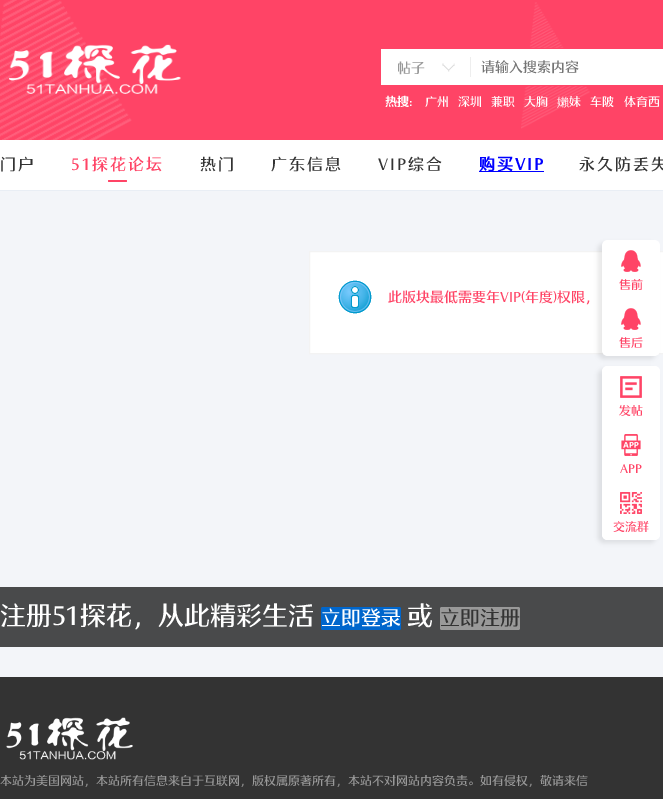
%!PS
<< /PageSize [663 799] /PageUsesTransparency true >> setpagedevice
/rgb { 3 { 255 div 3 1 roll } repeat setrgbcolor } def
/font { [ exch dup neg 0 0 3 -1 roll 0 0 ] selectfont } def
/text { moveto show } def
/alpha { dup .setfillconstantalpha .setstrokeconstantalpha } def
/roundrect { 5 dict begin { /r /h /w /y /x } { exch def } forall
  x r add y moveto x w add y 2 copy h add r arct x w add y h add x 1 index r arct
  x y h add x y r arct x y 2 copy exch w add exch r arct closepath end } def
/shadow { 12 dict begin { /a /b /q /h /w /y /x } { exch def } forall gsave /was 0 def
  9 -2 -9 { dup b mul 4 div /e exch def 1 sub .425 mul 2.718 exch exp 1 add a .99 .min exch div /now exch def
    1 1 now sub 1 was sub div sub alpha /was now def
    w h .min e 2 mul add 0 gt { x e sub y e sub w e 2 mul add h e 2 mul add
      q e add b .6 mul add w h .min 2 div e add .min 0 .max roundrect fill } if } for grestore end } def
/picture { 5 dict begin { /h /w /y /x /name } { exch def } forall
  gsave x y translate w h scale
  w h 8 [w 0 0 h 0 0] name (r) file false 3 colorimage grestore end } def
0 .pushpdf14devicefilter
0 799 translate 1 -1 scale
4 setmiterlimit
243 245 249 rgb
0 0 663 799 rectfill
255 68 102 rgb
0 0 663 140 rectfill
(img_01.rgb) 0 0 132 140 picture
(img_02.rgb) 521 2 69 127 picture
(img_03.rgb) 8 44 173 50 picture
380.5 48.5 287 37 3.5 roundrect stroke
255 255 255 rgb
381 49 282 36 rectfill
(img_04.rgb) 442 63 13 9 picture
238 238 238 rgb
470 57 1 20 rectfill
255 255 255 rgb
0 140 663 50 rectfill
233 238 245 rgb
0 190 663 1 rectfill
255 68 102 rgb
109 180 moveto 13 0 rlineto 0 2 rlineto -13 0 rlineto -0.5 0 -1 -0.5 -1 -1 rcurveto 0 -0.5 0.5 -1 1 -1 rcurveto closepath fill
113 180 moveto 13 0 rlineto 0.5 0 1 0.5 1 1 rcurveto 0 0.5 -0.5 1 -1 1 rcurveto -13 0 rlineto closepath fill
0 0 255 rgb
479 171 65 1 rectfill
255 255 255 rgb
309.5 251.5 moveto 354 0 rlineto 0 102 rlineto -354 0 rlineto closepath gsave fill grestore
243 243 243 rgb
stroke
23 22 22 rgb
598 243 58 116 6 2 0.09 shadow
255 255 255 rgb
608 240 moveto 46 0 rlineto 3.5 0 6 2.5 6 6 rcurveto 0 52 rlineto -58 0 rlineto 0 -52 rlineto 0 -3.5 2.5 -6 6 -6 rcurveto closepath fill
(img_05.rgb) 621 250 20 22 picture
602 298 moveto 58 0 rlineto 0 52 rlineto 0 3.5 -2.5 6 -6 6 rcurveto -46 0 rlineto -3.5 0 -6 -2.5 -6 -6 rcurveto closepath fill
(img_05.rgb) 621 308 20 22 picture
23 22 22 rgb
598 369 58 174 6 2 0.09 shadow
255 255 255 rgb
602 366 58 174 6 roundrect fill
608 366 moveto 46 0 rlineto 3.5 0 6 2.5 6 6 rcurveto 0 52 rlineto -58 0 rlineto 0 -52 rlineto 0 -3.5 2.5 -6 6 -6 rcurveto closepath fill
(img_06.rgb) 620 376 22 22 picture
(img_07.rgb) 621 434 20 22 picture
602 482 moveto 58 0 rlineto 0 52 rlineto 0 3.5 -2.5 6 -6 6 rcurveto -46 0 rlineto -3.5 0 -6 -2.5 -6 -6 rcurveto closepath fill
(img_08.rgb) 620 492 22 22 picture
(img_09.rgb) 338 280 34 34 picture
73 74 75 rgb
0 587 663 60 rectfill
0 102 204 rgb
321 607 80 23 2 roundrect fill
153 153 153 rgb
440 607 80 23 2 roundrect fill
51 51 51 rgb
0 677 663 122 rectfill
(img_10.rgb) 6 717 127 43 picture
/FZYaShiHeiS-Medium 14 font
153 153 153 rgb
(帖子) 397 73 text
117 117 117 rgb
(请输入搜索内容) 481 72 text
/FZYaShiHeiS-Bold 12 font
255 255 255 rgb
(热搜:) 385 106 text
/FZYaShiHeiS-Medium 12 font
(广州) 425 106 text
(深圳) 458 106 text
(兼职) 491 106 text
(大胸) 524 106 text
/WenQuanYiZenHei-Medium 12 font
(嬾) 557 106 text
/FZYaShiHeiS-Medium 12 font
(妹) 569 106 text
(车陂) 590 106 text
(体育西) 624 106 text
/FZYaShiHeiS-Medium 16 font
51 51 51 rgb
0 170 moveto 2 0 (门户) ashow
255 68 102 rgb
71 170 moveto 2 0 (51探花论坛) ashow
51 51 51 rgb
200 170 moveto 2 0 (热门) ashow
271 170 moveto 2 0 (广东信息) ashow
378 170 moveto 2 0 (VIP综合) ashow
/FZYaShiHeiS-Bold 16 font
0 0 255 rgb
479 170 moveto 2 0 (购买VIP) ashow
/FZYaShiHeiS-Medium 16 font
51 51 51 rgb
579 170 moveto 2 0 (永久防丢失) ashow
/FZYaShiHeiS-Medium 12 font
255 68 102 rgb
(售前) 619 289 text
(售后) 619 347 text
(发帖) 619 415 text
(APP) 620 473 text
(交流群) 613 531 text
/FZYaShiHeiS-Medium 14 font
(此版块最低需要年VIP\(年度\)权限，) 388 302 text
/FZYaShiHeiS-Medium 26 font
255 255 255 rgb
(注册51探花，从此精彩生活) 0 625 text
/FZYaShiHeiS-Medium 20 font
(立即登录) 321 625 text
/FZYaShiHeiS-Medium 26 font
(或) 407 625 text
/FZYaShiHeiS-Medium 20 font
51 51 51 rgb
(立即注册) 440 625 text
/FZYaShiHeiS-Medium 12 font
153 153 153 rgb
(本站为美国网站，本站所有信息来自于互联网，版权属原著所有，本站不对网站内容负责。如有侵权，敬请来信) 0 785 text
.poppdf14devicefilter showpage
